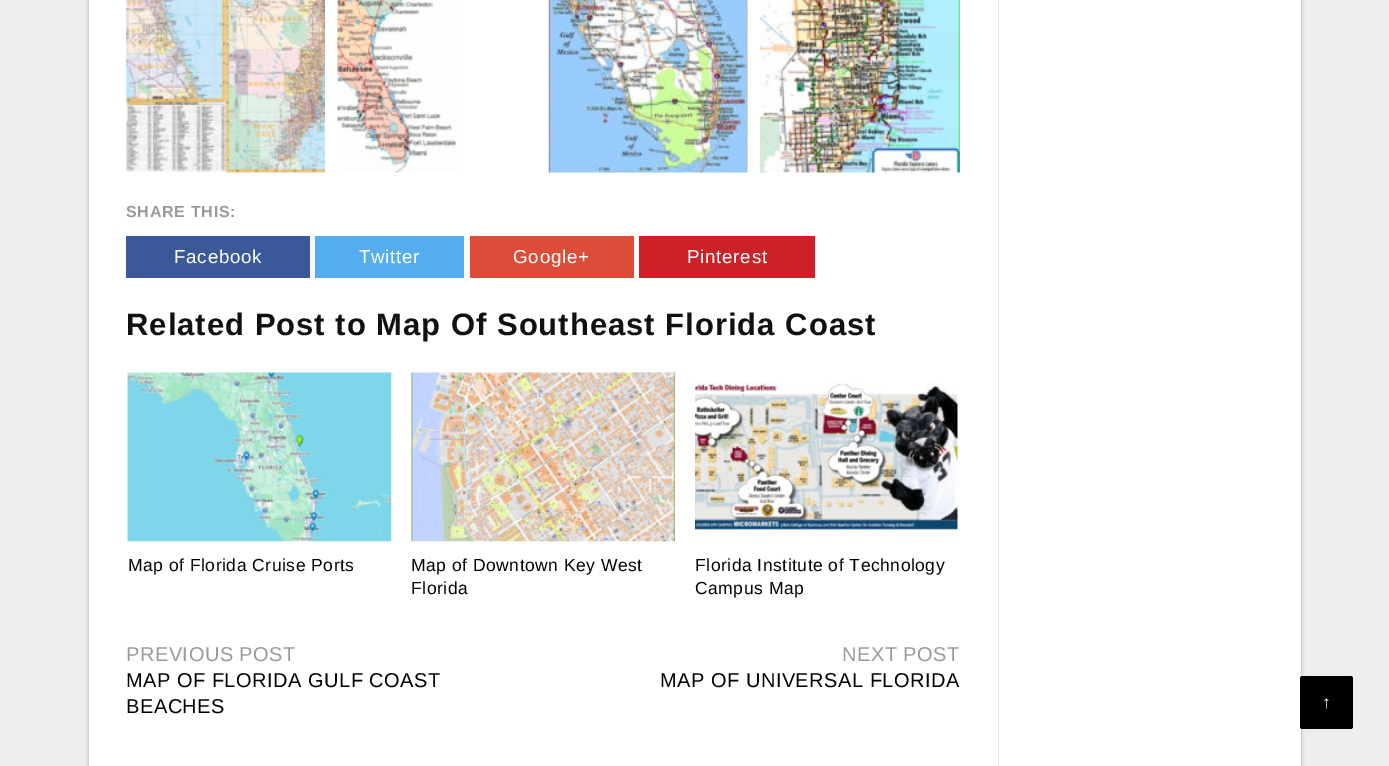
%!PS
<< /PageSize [1389 766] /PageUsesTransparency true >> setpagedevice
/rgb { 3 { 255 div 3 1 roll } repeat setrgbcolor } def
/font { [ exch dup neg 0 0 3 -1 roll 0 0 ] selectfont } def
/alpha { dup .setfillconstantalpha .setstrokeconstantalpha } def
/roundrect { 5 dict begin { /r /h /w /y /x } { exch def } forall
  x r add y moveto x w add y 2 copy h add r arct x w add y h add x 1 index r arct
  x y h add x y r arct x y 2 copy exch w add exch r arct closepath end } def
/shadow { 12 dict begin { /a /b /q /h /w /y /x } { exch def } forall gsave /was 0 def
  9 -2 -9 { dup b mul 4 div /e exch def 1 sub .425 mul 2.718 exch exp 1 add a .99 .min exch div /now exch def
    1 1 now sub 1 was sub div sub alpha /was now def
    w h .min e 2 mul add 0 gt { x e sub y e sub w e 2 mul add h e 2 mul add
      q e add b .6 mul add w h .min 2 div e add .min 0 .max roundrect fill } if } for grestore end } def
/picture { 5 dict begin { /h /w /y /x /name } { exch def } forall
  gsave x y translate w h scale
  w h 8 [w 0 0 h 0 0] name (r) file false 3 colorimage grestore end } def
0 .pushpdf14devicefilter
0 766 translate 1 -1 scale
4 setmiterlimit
238 238 238 rgb
0 0 1389 766 rectfill
0 0 0 rgb
89 -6 1212 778 0 2 0.3 shadow
255 255 255 rgb
89 0 1212 766 rectfill
232 232 232 rgb
998 0 1 766 rectfill
(img_01.rgb) 126 0 199 173 picture
(img_02.rgb) 337 0 120 173 picture
(img_03.rgb) 548 0 200 173 picture
(img_04.rgb) 760 0 200 173 picture
59 89 152 rgb
126 236 184 42 rectfill
85 172 238 rgb
315 236 149 42 rectfill
221 75 57 rgb
470 236 164 42 rectfill
204 33 39 rgb
639 236 176 42 rectfill
(img_05.rgb) 127 372 265 170 picture
(img_06.rgb) 411 372 264 170 picture
(img_07.rgb) 695 381 263 154 picture
0 0 0 rgb
1300 676 53 53 2.5 roundrect fill
/LiberationSans-Bold 16 font
153 153 153 rgb
126 217 moveto 0.75 0 (SHARE THIS:) ashow
/LiberationSans-Regular 18.75 font
255 255 255 rgb
174 263 moveto 0.75 0 (Facebook) ashow
359 263 moveto 0.75 0 (Twitter) ashow
513 263 moveto 0.75 0 (Google+) ashow
687 263 moveto 0.75 0 (Pinterest) ashow
/LiberationSans-Bold 31 font
17 17 17 rgb
126 335 moveto 1 0 (Related Post to Map Of Southeast Florida Coast) ashow
/LiberationSans-Regular 17.5 font
0 0 0 rgb
128 571 moveto 0.5 0 (Map of Florida Cruise Ports) ashow
411 571 moveto 0.5 0 (Map of Downtown Key West) ashow
411 594 moveto 0.5 0 (Florida) ashow
695 571 moveto 0.5 0 (Florida Institute of Technology) ashow
695 594 moveto 0.5 0 (Campus Map) ashow
/LiberationSans-Regular 20 font
153 153 153 rgb
126 661 moveto 0.5 0 (PREVIOUS POST) ashow
0 0 0 rgb
126 687 moveto 0.5 0 (MAP OF FLORIDA GULF COAST) ashow
126 713 moveto 0.5 0 (BEACHES) ashow
153 153 153 rgb
842 661 moveto 0.5 0 (NEXT POST) ashow
0 0 0 rgb
660 687 moveto 0.5 0 (MAP OF UNIVERSAL FLORIDA) ashow
/LiberationSans-Bold 17.5 font
255 255 255 rgb
1322 708 moveto 0.5 0 (↑) ashow
.poppdf14devicefilter showpage
